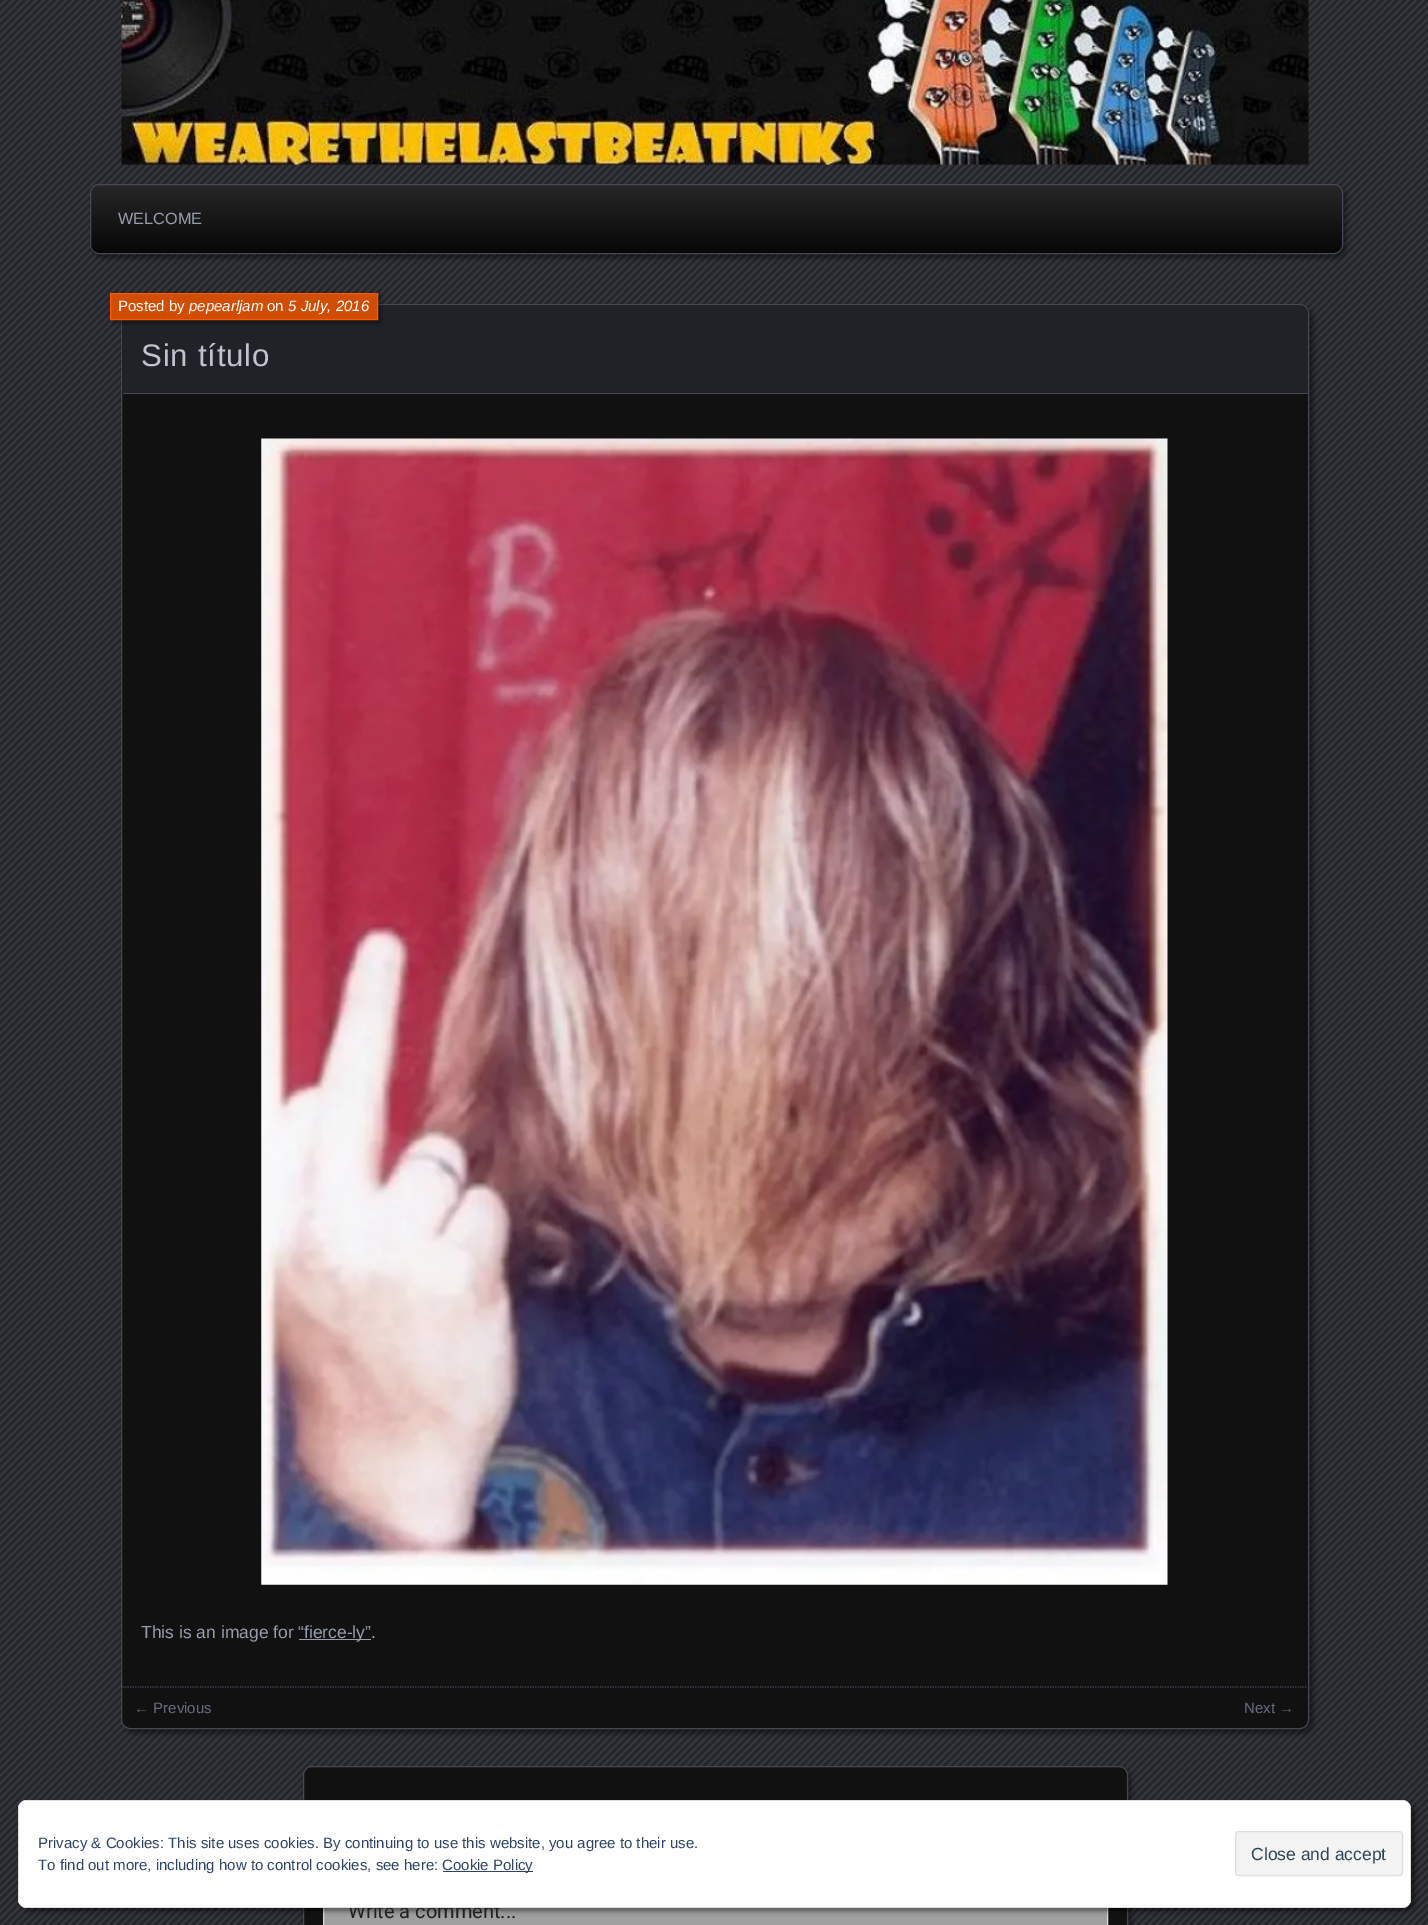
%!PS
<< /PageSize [1428 1925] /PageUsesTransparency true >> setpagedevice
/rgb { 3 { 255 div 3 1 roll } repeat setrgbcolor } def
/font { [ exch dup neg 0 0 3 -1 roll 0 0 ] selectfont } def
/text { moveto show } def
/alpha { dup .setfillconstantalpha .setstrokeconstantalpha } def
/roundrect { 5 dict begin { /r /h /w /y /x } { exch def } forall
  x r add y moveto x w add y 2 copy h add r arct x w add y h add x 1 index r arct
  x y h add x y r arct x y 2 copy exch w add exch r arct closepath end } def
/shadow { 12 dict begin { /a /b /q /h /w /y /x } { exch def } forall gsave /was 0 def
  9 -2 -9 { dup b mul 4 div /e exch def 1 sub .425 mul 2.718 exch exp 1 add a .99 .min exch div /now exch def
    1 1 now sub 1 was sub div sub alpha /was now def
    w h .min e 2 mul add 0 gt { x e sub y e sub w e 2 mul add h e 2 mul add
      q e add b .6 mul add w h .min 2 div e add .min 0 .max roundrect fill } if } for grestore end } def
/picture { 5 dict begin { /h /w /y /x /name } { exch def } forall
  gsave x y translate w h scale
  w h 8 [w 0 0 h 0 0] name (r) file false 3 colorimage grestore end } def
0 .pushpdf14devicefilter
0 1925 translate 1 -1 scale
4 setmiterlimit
32 34 40 rgb
0 0 1428 1925 rectfill
(img_01.rgb) 0 0 1428 1925 picture
(img_02.rgb) 121 0 1188 165 picture
0 0 0 rgb
94 188 1252 70 9 2.5 0.45 shadow
gsave
90 184 1253 70 9 roundrect clip newpath
gsave 90 185 moveto 1253 0 rlineto 0 68 rlineto -1253 0 rlineto closepath clip newpath
<< /ShadingType 2 /ColorSpace /DeviceRGB /Coords [716 185 716 253] /Extend [true true] /Function << /FunctionType 3 /Domain [0 1] /Functions [<< /FunctionType 2 /Domain [0 1] /C0 [0.153 0.153 0.153] /C1 [0.153 0.153 0.153] /N 1 >> << /FunctionType 2 /Domain [0 1] /C0 [0.153 0.153 0.153] /C1 [0.027 0.027 0.027] /N 1 >>] /Bounds [0.01] /Encode [0 1 0 1] >> >> shfill grestore
grestore
68 72 85 rgb
90.5 184.5 1252 69 8.5 roundrect stroke
0 0 0 rgb
125 308 1188 1425 9 2.5 0.45 shadow
17 17 17 rgb
121.5 304.5 1187 1424 8.5 roundrect gsave fill grestore
68 72 85 rgb
stroke
32 34 40 rgb
132 305 moveto 1167 0 rlineto 5 0 9 4 9 9 rcurveto 0 80 rlineto -1185 0 rlineto 0 -80 rlineto 0 -5 4 -9 9 -9 rcurveto closepath fill
68 72 85 rgb
123 393 1185 1 rectfill
0 0 0 rgb
113 295 267 28 0 2 0.45 shadow
210 77 4 rgb
110.5 293.5 moveto 267 0 rlineto 0 26 rlineto -267 0 rlineto closepath gsave fill grestore
255 90 0 rgb
stroke
(img_03.rgb) 261 438 907 1147 picture
152 158 174 rgb
299 1639 72 1 rectfill
68 72 85 rgb
1.2 setlinewidth
[1.25 1.25] 0 setdash
122.5 1687 moveto 1185 0 rlineto stroke
0 0 0 rgb
306 1770 825 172 9 2.5 0.45 shadow
17 17 17 rgb
303.5 1766.5 824 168 8.5 roundrect gsave fill grestore
68 72 85 rgb
1 setlinewidth
[] 0 setdash
stroke
160 160 160 rgb
324 1908 783 17 rectfill
220 220 222 rgb
323.5 1861.5 784 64 rectstroke
0 0 0 rgb
21 1804 1394 107 9 2.5 0.45 shadow
/LiberationSans-Regular 16.25 font
152 158 174 rgb
(WELCOME) 118 224 text
/LiberationSans-Regular 15 font
255 255 255 rgb
(Posted by) 118 311 text
/LiberationSans-Italic 15 font
(pepearljam) 189 311 text
/LiberationSans-Regular 15 font
(on) 267 311 text
/LiberationSans-Italic 15 font
(5 July, 2016) 288 311 text
/LiberationSans-Regular 31.25 font
191 195 207 rgb
141 366 moveto 0.75 0 (Sin título) ashow
/LiberationSans-Regular 17.5 font
152 158 174 rgb
(This is an image for) 141 1638 text
(“fierce-ly”.) 298 1638 text
/LiberationSans-Regular 15 font
102 108 127 rgb
(← Previous) 134 1713 text
(Next →) 1244 1713 text
/Roboto-Regular 20 font
32 32 32 rgb
(Write a comment...) 348 1918 text
255 255 255 rgb
18 1800 1393 108 9 roundrect fill
222 222 222 rgb
18 1809 moveto 0 90 rlineto 0 1 0 3 1 4 rcurveto 0 -98 rlineto closepath 27 1800 moveto -4 1 rlineto 1383 0 rlineto -4 -1 rlineto closepath 1411 1809 moveto -1 -4 rlineto 0 98 rlineto 1 -1 1 -3 1 -4 rcurveto closepath 1402 1908 moveto 4 -1 rlineto -1383 0 rlineto 4 1 rlineto closepath eofill
/LiberationSans-Regular 15 font
46 68 103 rgb
(Privacy & Cookies: This site uses cookies. By continuing to use this website, you agree to their use.) 38 1848 text
243 243 243 rgb
1235.5 1831.5 167 44 3.5 roundrect gsave fill grestore
222 222 222 rgb
stroke
/LiberationSans-Regular 17.5 font
46 68 83 rgb
(Close and accept) 1251 1860 text
/LiberationSans-Regular 15 font
46 68 103 rgb
(To find out more, including how to control cookies, see here:) 38 1870 text
443 1871 90 1 rectfill
(Cookie Policy) 442 1870 text
.poppdf14devicefilter showpage
